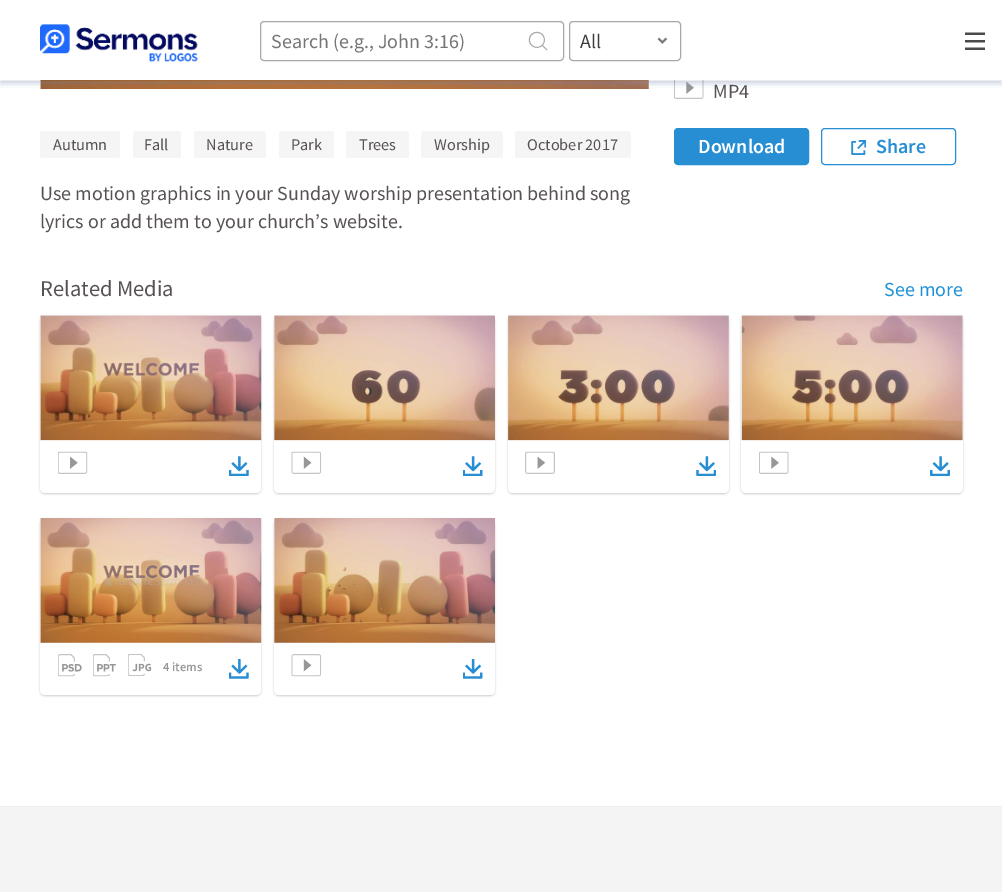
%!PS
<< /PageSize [1002 892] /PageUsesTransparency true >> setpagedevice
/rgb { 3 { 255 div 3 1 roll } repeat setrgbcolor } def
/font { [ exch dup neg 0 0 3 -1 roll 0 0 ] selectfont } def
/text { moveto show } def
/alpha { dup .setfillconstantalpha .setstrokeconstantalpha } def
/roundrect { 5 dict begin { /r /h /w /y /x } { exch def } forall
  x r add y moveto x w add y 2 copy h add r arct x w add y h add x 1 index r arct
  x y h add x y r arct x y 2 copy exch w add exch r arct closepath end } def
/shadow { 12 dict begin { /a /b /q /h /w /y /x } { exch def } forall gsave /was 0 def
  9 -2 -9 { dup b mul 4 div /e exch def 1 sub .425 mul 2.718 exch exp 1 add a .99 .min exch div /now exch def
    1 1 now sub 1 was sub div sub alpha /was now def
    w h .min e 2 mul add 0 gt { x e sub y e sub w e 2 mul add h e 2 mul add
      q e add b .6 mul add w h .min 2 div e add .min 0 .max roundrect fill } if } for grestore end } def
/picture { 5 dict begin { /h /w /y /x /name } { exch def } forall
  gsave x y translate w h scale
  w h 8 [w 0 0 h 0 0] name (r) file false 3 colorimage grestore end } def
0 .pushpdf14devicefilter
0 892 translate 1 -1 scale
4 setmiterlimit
255 255 255 rgb
0 0 1002 892 rectfill
(img_05.rgb) 674 80 30 19 picture
238 238 238 rgb
40 80 609 9 rectfill
(img_07.rgb) 40 80 609 9 picture
0 0 0 rgb
0 1 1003 80 0 1 0.1 shadow
255 255 255 rgb
0 0 1002 80 rectfill
gsave
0 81 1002 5 rectclip
110 131 183 rgb
1 4 1000 79 0 2.5 0.2 shadow
grestore
gsave
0 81 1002 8 rectclip
110 131 183 rgb
0 5 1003 81 0 3 0.14 shadow
grestore
(img_01.rgb) 40 24 158 38 picture
168 168 168 rgb
260.5 21.5 303 39 3.5 roundrect stroke
(img_02.rgb) 528 31 20 20 picture
569.5 21.5 111 39 3.5 roundrect stroke
(img_03.rgb) 657 37 11 7 picture
(img_04.rgb) 965 32 20 18 picture
39 142 212 rgb
674.5 128.5 134 36 3.5 roundrect gsave fill grestore
stroke
821.5 128.5 134 36 3.5 roundrect stroke
(img_06.rgb) 851 140 15 15 picture
245 245 245 rgb
40 131 80 27 2.5 roundrect fill
133 131 48 27 2.5 roundrect fill
194 131 72 27 2.5 roundrect fill
279 131 55 27 2.5 roundrect fill
346 131 63 27 2.5 roundrect fill
421 131 82 27 2.5 roundrect fill
515 131 116 27 2.5 roundrect fill
0 0 0 rgb
40 316 221 178 5 1 0.2 shadow
255 255 255 rgb
40 315 moveto 221 0 rlineto 0 173 rlineto 0 3 -2 5 -5 5 rcurveto -211 0 rlineto -3 0 -5 -2 -5 -5 rcurveto closepath fill
238 238 238 rgb
40 315 221 125 rectfill
(img_08.rgb) 40 315 222 126 picture
(img_09.rgb) 58 451 30 23 picture
(img_10.rgb) 229 456 20 20 picture
0 0 0 rgb
274 316 221 178 5 1 0.2 shadow
255 255 255 rgb
274 315 moveto 221 0 rlineto 0 173 rlineto 0 3 -2 5 -5 5 rcurveto -211 0 rlineto -3 0 -5 -2 -5 -5 rcurveto closepath fill
238 238 238 rgb
274 315 221 125 rectfill
(img_11.rgb) 274 315 221 126 picture
(img_12.rgb) 291 451 31 23 picture
(img_13.rgb) 463 456 20 20 picture
0 0 0 rgb
508 316 221 178 5 1 0.2 shadow
255 255 255 rgb
508 315 moveto 221 0 rlineto 0 173 rlineto 0 3 -2 5 -5 5 rcurveto -211 0 rlineto -3 0 -5 -2 -5 -5 rcurveto closepath fill
238 238 238 rgb
508 315 221 125 rectfill
(img_14.rgb) 508 315 221 126 picture
(img_15.rgb) 525 451 30 23 picture
(img_16.rgb) 696 456 20 20 picture
0 0 0 rgb
741 316 222 178 5 1 0.2 shadow
255 255 255 rgb
741 315 moveto 222 0 rlineto 0 173 rlineto 0 3 -2 5 -5 5 rcurveto -212 0 rlineto -3 0 -5 -2 -5 -5 rcurveto closepath fill
238 238 238 rgb
741 315 222 125 rectfill
(img_17.rgb) 741 315 222 126 picture
(img_18.rgb) 759 451 30 23 picture
(img_19.rgb) 930 456 20 20 picture
0 0 0 rgb
40 519 221 177 5 1 0.2 shadow
255 255 255 rgb
40 518 moveto 221 0 rlineto 0 172 rlineto 0 3 -2 5 -5 5 rcurveto -211 0 rlineto -3 0 -5 -2 -5 -5 rcurveto closepath fill
238 238 238 rgb
40 518 221 125 rectfill
(img_20.rgb) 40 518 222 125 picture
(img_21.rgb) 58 654 24 23 picture
(img_22.rgb) 93 654 23 23 picture
(img_23.rgb) 128 654 24 22 picture
(img_24.rgb) 229 659 20 20 picture
0 0 0 rgb
274 519 221 177 5 1 0.2 shadow
255 255 255 rgb
274 518 moveto 221 0 rlineto 0 172 rlineto 0 3 -2 5 -5 5 rcurveto -211 0 rlineto -3 0 -5 -2 -5 -5 rcurveto closepath fill
238 238 238 rgb
274 518 221 125 rectfill
(img_25.rgb) 274 518 221 125 picture
(img_26.rgb) 291 654 31 23 picture
(img_27.rgb) 463 659 20 20 picture
244 244 244 rgb
0 807 1002 85 rectfill
238 238 238 rgb
0 806 1002 1 rectfill
/SourceSansPro-Regular 20 font
117 117 117 rgb
(Search \(e.g., John 3:16\)) 271 48 text
61 61 61 rgb
(All) 580 48 text
87 82 81 rgb
(MP4) 713 98 text
/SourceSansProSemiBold-SemiBold 20 font
255 255 255 rgb
(Download) 698 153 text
39 142 212 rgb
(Share) 876 153 text
/SourceSansPro-Regular 16.25 font
87 82 81 rgb
(Autumn) 53 150 text
(Fall) 144 150 text
(Nature) 206 150 text
(Park) 291 150 text
(Trees) 359 150 text
(Worship) 434 150 text
(October 2017) 527 150 text
/SourceSansPro-Regular 20 font
(Use motion graphics in your Sunday worship presentation behind song) 40 200 text
(lyrics or add them to your church’s website.) 40 228 text
/SourceSansPro-Regular 22.5 font
(Related Media) 40 296 text
/SourceSansPro-Regular 20 font
30 145 214 rgb
(See more) 884 296 text
/SourceSansProSemiBold-SemiBold 12.5 font
151 151 151 rgb
(4 items) 163 671 text
.poppdf14devicefilter showpage
